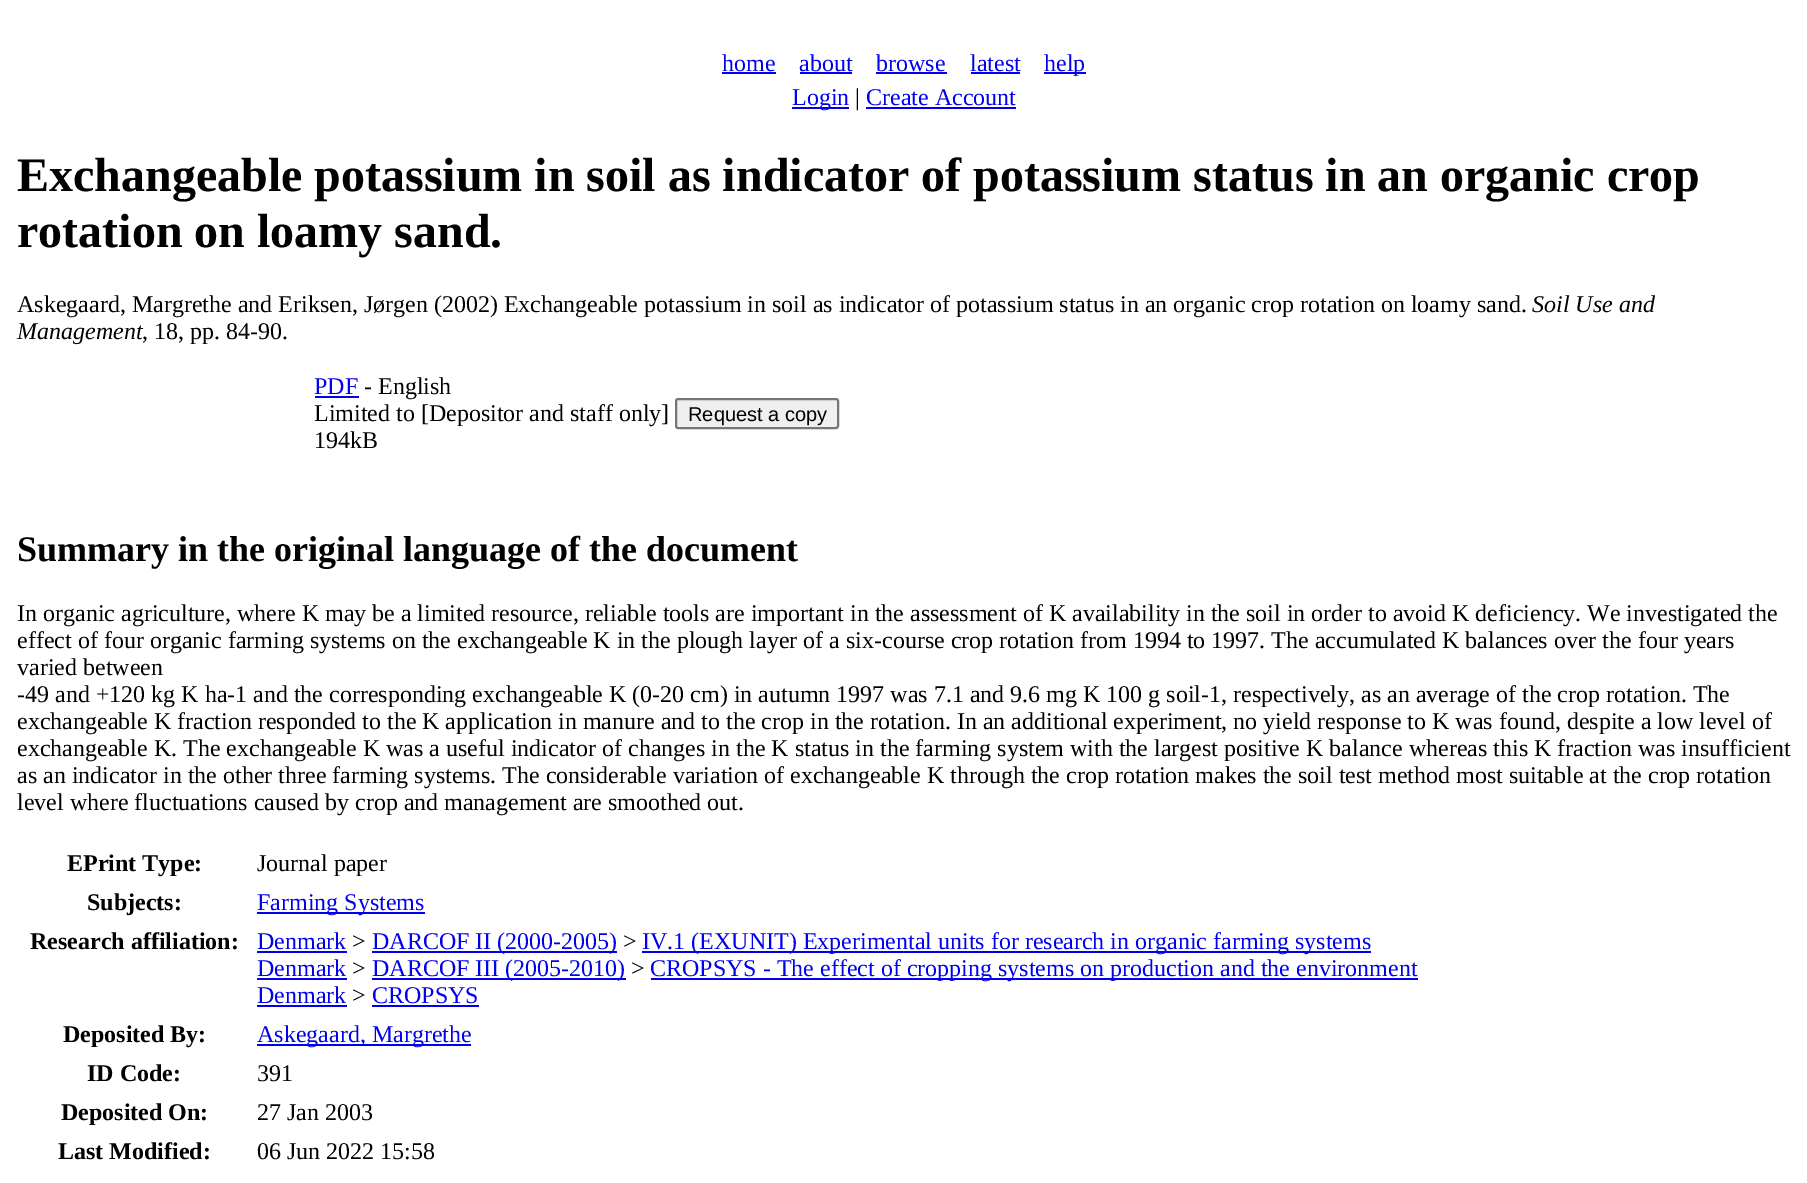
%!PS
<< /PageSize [1807 1183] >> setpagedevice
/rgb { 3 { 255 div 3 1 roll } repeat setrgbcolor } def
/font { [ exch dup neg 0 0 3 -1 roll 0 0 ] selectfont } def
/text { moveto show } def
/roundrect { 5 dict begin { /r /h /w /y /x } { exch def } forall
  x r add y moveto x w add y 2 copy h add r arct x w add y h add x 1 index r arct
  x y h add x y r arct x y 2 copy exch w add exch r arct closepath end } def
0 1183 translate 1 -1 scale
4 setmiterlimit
255 255 255 rgb
0 0 1807 1183 rectfill
0 0 238 rgb
722 72 54 2 rectfill
800 72 52 2 rectfill
876 72 71 2 rectfill
971 72 49 2 rectfill
1044 72 42 2 rectfill
792 107 57 2 rectfill
866 107 150 2 rectfill
315 396 44 2 rectfill
239 239 239 rgb
676 399 162 29 2 roundrect gsave fill grestore
118 118 118 rgb
2 setlinewidth
stroke
0 0 238 rgb
257 912 168 2 rectfill
257 951 90 2 rectfill
372 951 245 2 rectfill
642 951 729 2 rectfill
257 978 90 2 rectfill
372 978 254 2 rectfill
651 978 767 2 rectfill
257 1005 90 2 rectfill
372 1005 107 2 rectfill
257 1044 214 2 rectfill
/LiberationSerif-Regular 24 font
(home) 722 71 text
(about) 799 71 text
(browse) 876 71 text
(latest) 970 71 text
(help) 1044 71 text
(Login) 792 105 text
0 0 0 rgb
(|) 855 105 text
0 0 238 rgb
(Create Account) 866 105 text
/LiberationSerif-Bold 48 font
0 0 0 rgb
(Exchangeable potassium in soil as indicator of potassium status in an organic crop) 17 191 text
(rotation on loamy sand.) 17 247 text
/LiberationSerif-Regular 24 font
(Askegaard, Margrethe and Eriksen, Jørgen \(2002\) Exchangeable potassium in soil as indicator of potassium status in an organic crop rotation on loamy sand.) 17 312 text
/LiberationSerif-Italic 24 font
(Soil Use and) 1532 312 text
(Management) 17 339 text
/LiberationSerif-Regular 24 font
(, 18, pp. 84-90.) 142 339 text
0 0 238 rgb
(PDF) 314 394 text
0 0 0 rgb
(- English) 364 394 text
(Limited to [Depositor and staff only]) 314 421 text
(194kB) 314 448 text
/LiberationSans-Regular 20 font
(Request a copy) 688 421 text
/LiberationSerif-Bold 36 font
(Summary in the original language of the document) 17 561 text
/LiberationSerif-Regular 24 font
(In organic agriculture, where K may be a limited resource, reliable tools are important in the assessment of K availability in the soil in order to avoid K deficiency. We investigated the) 17 621 text
(effect of four organic farming systems on the exchangeable K in the plough layer of a six-course crop rotation from 1994 to 1997. The accumulated K balances over the four years) 17 648 text
(varied between) 17 675 text
(-49 and +120 kg K ha-1 and the corresponding exchangeable K \(0-20 cm\) in autumn 1997 was 7.1 and 9.6 mg K 100 g soil-1, respectively, as an average of the crop rotation. The) 17 702 text
(exchangeable K fraction responded to the K application in manure and to the crop in the rotation. In an additional experiment, no yield response to K was found, despite a low level of) 17 729 text
(exchangeable K. The exchangeable K was a useful indicator of changes in the K status in the farming system with the largest positive K balance whereas this K fraction was insufficient) 17 756 text
(as an indicator in the other three farming systems. The considerable variation of exchangeable K through the crop rotation makes the soil test method most suitable at the crop rotation) 17 783 text
(level where fluctuations caused by crop and management are smoothed out.) 17 810 text
/LiberationSerif-Bold 24 font
(EPrint Type:) 67 871 text
/LiberationSerif-Regular 24 font
(Journal paper) 257 871 text
/LiberationSerif-Bold 24 font
(Subjects:) 87 910 text
/LiberationSerif-Regular 24 font
0 0 238 rgb
(Farming Systems) 257 910 text
/LiberationSerif-Bold 24 font
0 0 0 rgb
(Research affiliation:) 30 949 text
/LiberationSerif-Regular 24 font
0 0 238 rgb
(Denmark) 257 949 text
0 0 0 rgb
(>) 352 949 text
0 0 238 rgb
(DARCOF II \(2000-2005\)) 372 949 text
0 0 0 rgb
(>) 623 949 text
0 0 238 rgb
(IV.1 \(EXUNIT\) Experimental units for research in organic farming systems) 642 949 text
(Denmark) 257 976 text
0 0 0 rgb
(>) 352 976 text
0 0 238 rgb
(DARCOF III \(2005-2010\)) 372 976 text
0 0 0 rgb
(>) 631 976 text
0 0 238 rgb
(CROPSYS - The effect of cropping systems on production and the environment) 650 976 text
(Denmark) 257 1003 text
0 0 0 rgb
(>) 352 1003 text
0 0 238 rgb
(CROPSYS) 372 1003 text
/LiberationSerif-Bold 24 font
0 0 0 rgb
(Deposited By:) 63 1042 text
/LiberationSerif-Regular 24 font
0 0 238 rgb
(Askegaard, Margrethe) 257 1042 text
/LiberationSerif-Bold 24 font
0 0 0 rgb
(ID Code:) 87 1081 text
/LiberationSerif-Regular 24 font
(391) 257 1081 text
/LiberationSerif-Bold 24 font
(Deposited On:) 61 1120 text
/LiberationSerif-Regular 24 font
(27 Jan 2003) 257 1120 text
/LiberationSerif-Bold 24 font
(Last Modified:) 58 1159 text
/LiberationSerif-Regular 24 font
(06 Jun 2022 15:58) 257 1159 text
showpage
